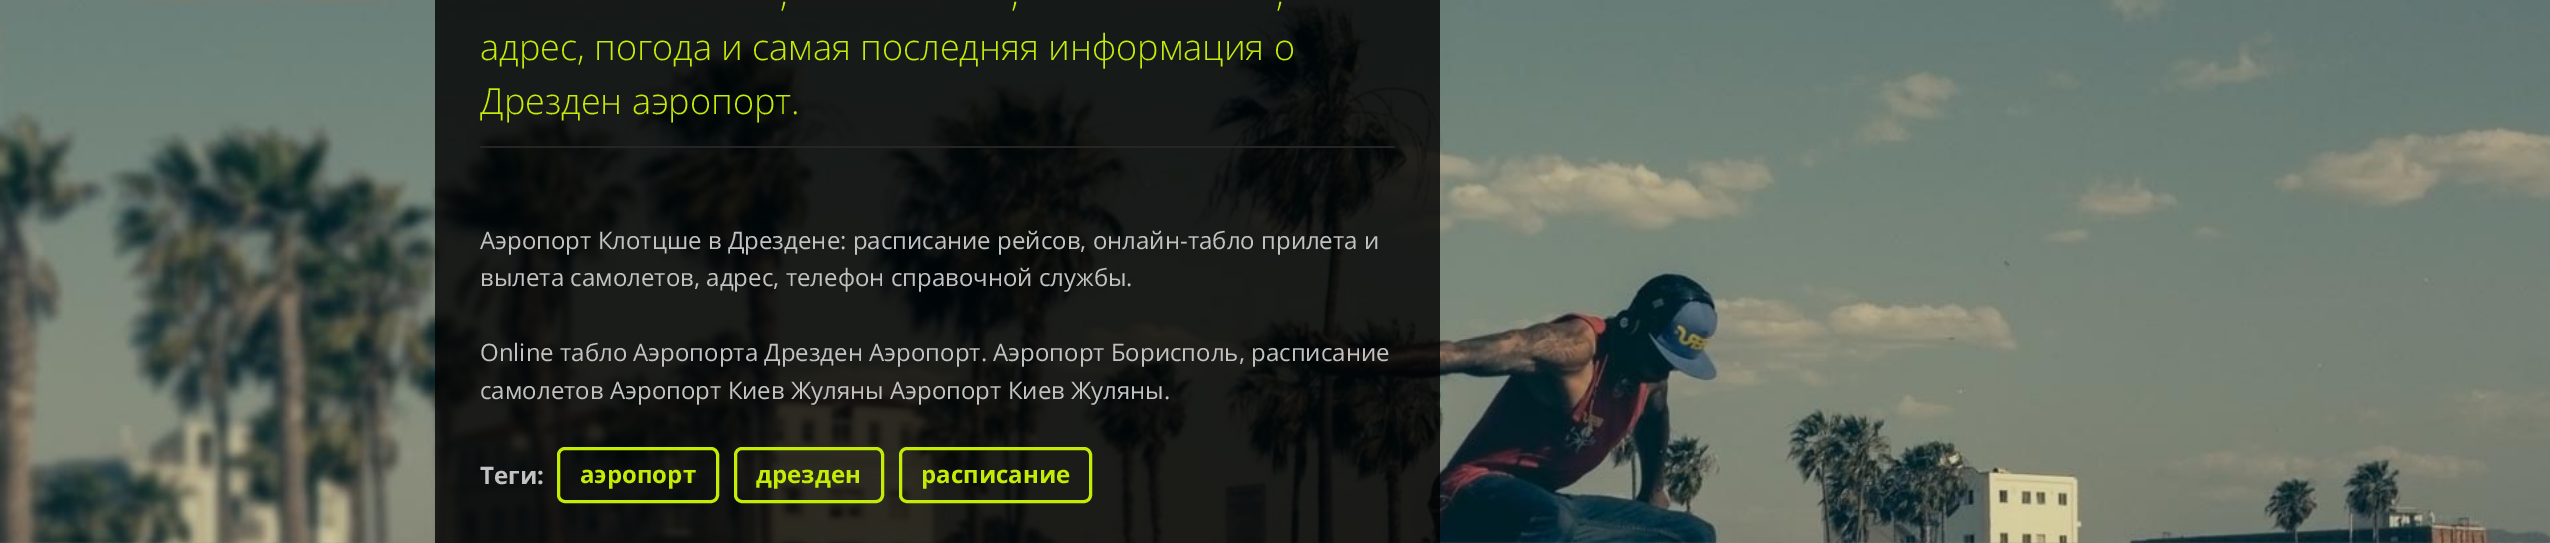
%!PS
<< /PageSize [2550 543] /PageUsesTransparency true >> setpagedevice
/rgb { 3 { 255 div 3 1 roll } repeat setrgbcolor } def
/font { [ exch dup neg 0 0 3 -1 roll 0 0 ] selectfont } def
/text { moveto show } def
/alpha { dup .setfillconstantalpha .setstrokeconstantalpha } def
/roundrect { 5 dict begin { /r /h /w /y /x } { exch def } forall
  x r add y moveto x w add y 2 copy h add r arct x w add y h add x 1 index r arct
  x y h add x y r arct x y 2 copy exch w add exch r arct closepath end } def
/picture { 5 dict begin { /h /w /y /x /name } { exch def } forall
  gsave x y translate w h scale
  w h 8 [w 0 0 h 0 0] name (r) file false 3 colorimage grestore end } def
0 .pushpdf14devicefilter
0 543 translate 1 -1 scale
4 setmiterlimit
255 255 255 rgb
0 0 2550 543 rectfill
(img_01.rgb) 0 0 2550 543 picture
0.8 alpha
0 0 0 rgb
435 0 1005 447 rectfill
1 alpha
38 37 37 rgb
480 146 915 2 rectfill
0.8 alpha
0 0 0 rgb
435 447 1005 96 rectfill
1 alpha
195 236 6 rgb
3 setlinewidth
558.5 448.5 159 53 6.5 roundrect stroke
735.5 448.5 147 53 6.5 roundrect stroke
900.5 448.5 190 53 6.5 roundrect stroke
/OpenSans-Light 36 font
(,) 780 6 text
(,) 1011 6 text
(,) 1276 6 text
(адрес, погода и самая последняя информация о) 480 60 text
(Дрезден аэропорт.) 480 114 text
/OpenSans-Regular 24 font
194 194 194 rgb
(Аэропорт Клотцше в Дрездене: расписание рейсов, онлайн-табло прилета и) 480 249 text
(вылета самолетов, адрес, телефон справочной службы.) 480 286 text
(Online табло Аэропорта Дрезден Аэропорт. Аэропорт Борисполь, расписание) 480 361 text
(самолетов Аэропорт Киев Жуляны Аэропорт Киев Жуляны.) 480 399 text
/OpenSans-Bold 24 font
(Теги:) 480 484 text
195 236 6 rgb
(аэропорт) 580 483 text
(дрезден) 756 483 text
(расписание) 921 483 text
.poppdf14devicefilter showpage
